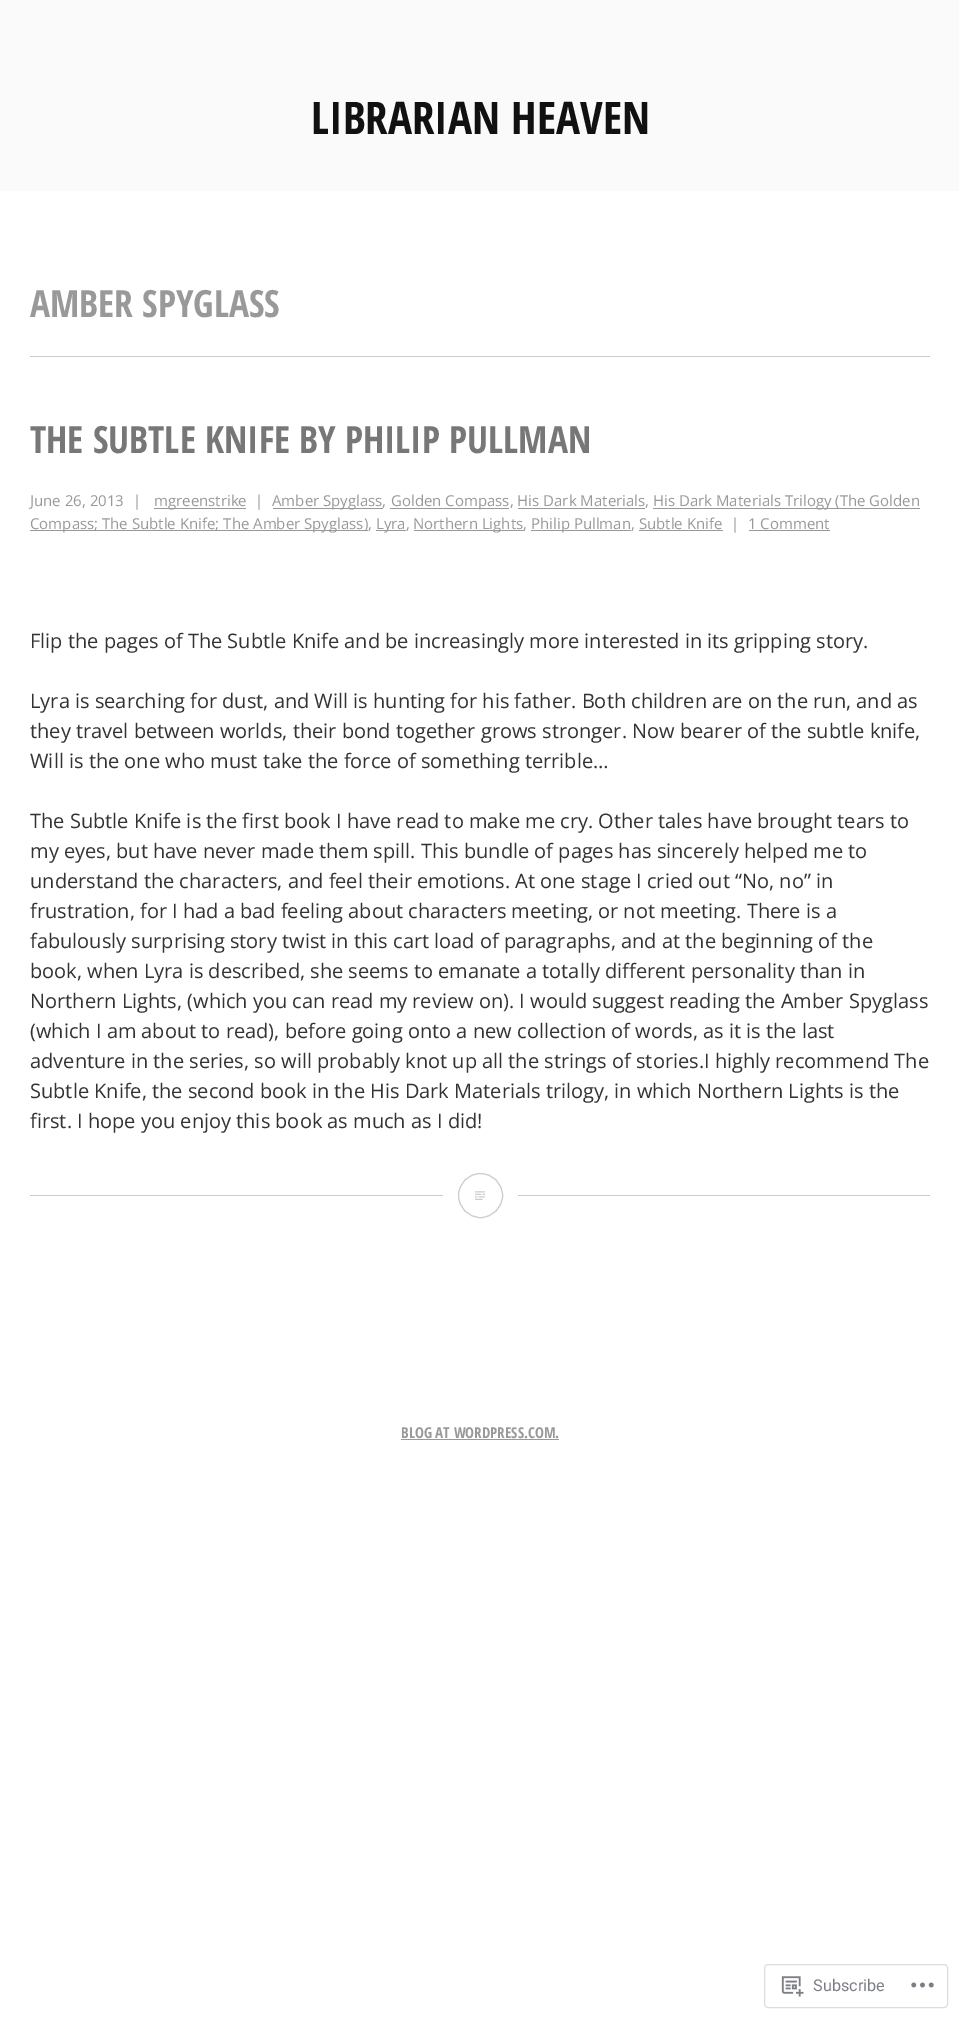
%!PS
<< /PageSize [959 2019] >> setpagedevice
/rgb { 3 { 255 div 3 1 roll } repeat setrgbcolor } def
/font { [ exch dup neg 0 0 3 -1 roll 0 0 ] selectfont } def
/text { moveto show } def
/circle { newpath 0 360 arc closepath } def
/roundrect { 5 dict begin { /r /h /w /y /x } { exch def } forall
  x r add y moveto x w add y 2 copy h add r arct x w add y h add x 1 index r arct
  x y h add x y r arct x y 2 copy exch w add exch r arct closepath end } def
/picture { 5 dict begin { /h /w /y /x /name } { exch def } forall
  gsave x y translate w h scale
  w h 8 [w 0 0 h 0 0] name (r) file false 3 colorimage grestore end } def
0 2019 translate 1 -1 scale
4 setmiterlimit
255 255 255 rgb
0 0 959 2019 rectfill
250 250 250 rgb
0 0 959 191 rectfill
204 204 204 rgb
30 356 900 1 rectfill
30 1195 900 1 rectfill
153 153 153 rgb
154 508 92 1 rectfill
273 508 110 1 rectfill
390 508 119 1 rectfill
518 508 127 1 rectfill
653 508 267 1 rectfill
30 530 338 1 rectfill
376 530 30 1 rectfill
414 530 110 1 rectfill
531 530 100 1 rectfill
639 530 84 1 rectfill
749 530 81 1 rectfill
255 255 255 rgb
443 1195 75 1 rectfill
204 204 204 rgb
480.5 1195.5 22 circle stroke
(img_01.rgb) 475 1191 10 9 picture
153 153 153 rgb
401 1439 158 1 rectfill
221 221 223 rgb
764.5 1964.5 183 43 3.5 roundrect stroke
(img_02.rgb) 781 1976 23 21 picture
(img_03.rgb) 911 1982 23 6 picture
/OpenSansCondensed-Bold 45 font
17 17 17 rgb
(LIBRARIAN HEAVEN) 311 134 text
/OpenSansCondensed-Bold 37.5 font
153 153 153 rgb
(AMBER SPYGLASS) 30 317 text
119 119 119 rgb
(THE SUBTLE KNIFE BY PHILIP PULLMAN) 30 453 text
/OpenSans-Regular 15 font
153 153 153 rgb
(June 26, 2013) 30 506 text
(|) 133 506 text
(mgreenstrike) 154 506 text
(|) 255 506 text
(Amber Spyglass,) 272 506 text
(Golden Compass, His Dark Materials,) 391 506 text
(His Dark Materials Trilogy \(The Golden) 653 506 text
(Compass; The Subtle Knife; The Amber Spyglass\),) 30 529 text
(Lyra,) 376 529 text
(Northern Lights,) 413 529 text
(Philip Pullman, Subtle Knife) 531 529 text
(|) 731 529 text
(1 Comment) 748 529 text
/OpenSans-Regular 20 font
51 51 51 rgb
(Flip the pages of The Subtle Knife and be increasingly more interested in its gripping story.) 30 648 text
(Lyra is searching for dust, and Will is hunting for his father. Both children are on the run, and as) 30 708 text
(they travel between worlds, their bond together grows stronger. Now bearer of the subtle knife,) 30 738 text
(Will is the one who must take the force of something terrible…) 30 768 text
(The Subtle Knife is the first book I have read to make me cry. Other tales have brought tears to) 30 828 text
(my eyes, but have never made them spill. This bundle of pages has sincerely helped me to) 30 858 text
(understand the characters, and feel their emotions. At one stage I cried out “No, no” in) 30 888 text
(frustration, for I had a bad feeling about characters meeting, or not meeting. There is a) 30 918 text
(fabulously surprising story twist in this cart load of paragraphs, and at the beginning of the) 30 948 text
(book, when Lyra is described, she seems to emanate a totally different personality than in) 30 978 text
(Northern Lights, \(which you can read my review on\). I would suggest reading the Amber Spyglass) 30 1008 text
(\(which I am about to read\), before going onto a new collection of words, as it is the last) 30 1038 text
(adventure in the series, so will probably knot up all the strings of stories.I highly recommend The) 30 1068 text
(Subtle Knife, the second book in the His Dark Materials trilogy, in which Northern Lights is the) 30 1098 text
(first. I hope you enjoy this book as much as I did!) 30 1128 text
/OpenSansCondensed-Bold 15 font
153 153 153 rgb
(BLOG AT WORDPRESS.COM.) 401 1438 text
/Roboto-Regular 16.25 font
123 127 133 rgb
(Subscribe) 813 1991 text
showpage
